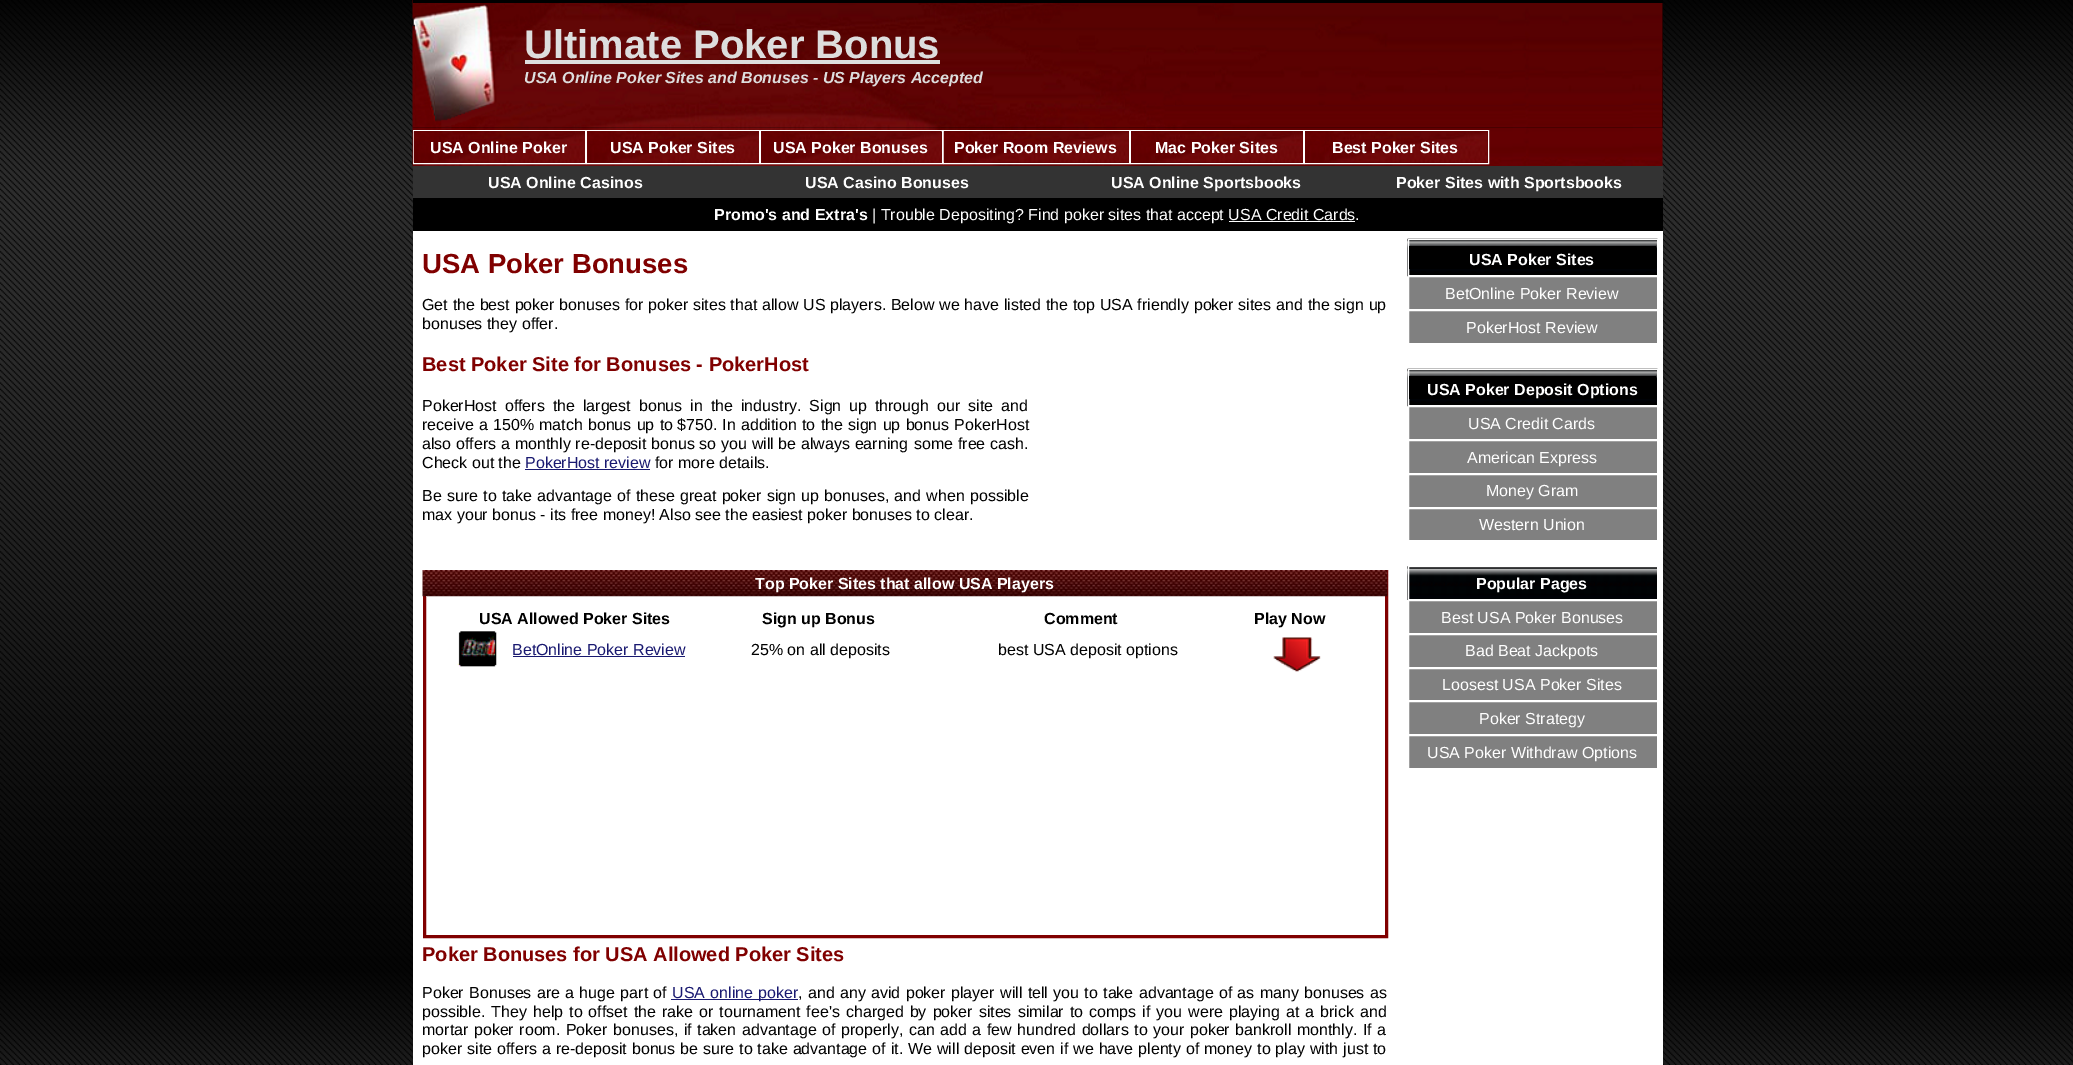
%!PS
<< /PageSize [2073 1065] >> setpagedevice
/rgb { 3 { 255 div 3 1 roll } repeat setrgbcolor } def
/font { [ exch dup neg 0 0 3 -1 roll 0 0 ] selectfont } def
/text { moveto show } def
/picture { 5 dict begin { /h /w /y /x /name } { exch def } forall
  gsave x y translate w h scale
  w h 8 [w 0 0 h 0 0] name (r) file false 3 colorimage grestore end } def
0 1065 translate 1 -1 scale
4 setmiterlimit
255 255 255 rgb
0 0 2073 1065 rectfill
(img_01.rgb) 0 0 2073 1065 picture
0 0 0 rgb
413 3 1250 125 rectfill
(img_02.rgb) 412 0 1251 128 picture
413 0 1250 3 rectfill
221 221 221 rgb
525 60 415 4 rectfill
(img_03.rgb) 412 127 1251 40 picture
255 255 255 rgb
413.5 130.5 172 33 rectstroke
(img_04.rgb) 413 131 172 32 picture
586.5 130.5 173 33 rectstroke
(img_05.rgb) 587 131 172 32 picture
760.5 130.5 182 33 rectstroke
(img_06.rgb) 761 131 180 32 picture
943.5 130.5 186 33 rectstroke
(img_07.rgb) 943 131 186 32 picture
1130.5 130.5 173 33 rectstroke
(img_08.rgb) 1131 131 172 32 picture
1304.5 130.5 184 33 rectstroke
(img_09.rgb) 1305 131 183 32 picture
51 51 51 rgb
413 166 1250 32 rectfill
0 0 0 rgb
413 198 1250 33 rectfill
255 255 255 rgb
1229 221 126 1 rectfill
413 231 1250 834 rectfill
25 25 112 rgb
525 469 125 1 rectfill
128 0 0 rgb
3 setlinewidth
424.5 571.5 962 365 rectstroke
(img_10.rgb) 422 570 966 27 picture
(img_11.rgb) 457 631 40 36 picture
25 25 112 rgb
513 656 172 1 rectfill
(img_12.rgb) 1273 637 48 35 picture
671 999 127 1 rectfill
128 128 128 rgb
1409 277 248 66 rectfill
(img_13.rgb) 1407 238 251 39 picture
255 255 255 rgb
1 setlinewidth
1408.5 239.5 249 36 rectstroke
0 0 0 rgb
1409 246 247 23 rectfill
255 255 255 rgb
1408.5 276.5 249 33 rectstroke
1408.5 310.5 249 33 rectstroke
128 128 128 rgb
1409 407 248 133 rectfill
(img_13.rgb) 1407 368 251 39 picture
255 255 255 rgb
1408.5 369.5 249 36 rectstroke
0 0 0 rgb
1409 376 247 23 rectfill
255 255 255 rgb
1408.5 406.5 249 33 rectstroke
1408.5 440.5 249 33 rectstroke
1408.5 474.5 249 33 rectstroke
1408.5 508.5 249 32 rectstroke
128 128 128 rgb
1409 601 248 167 rectfill
(img_14.rgb) 1407 566 250 34 picture
255 255 255 rgb
1408.5 566.5 249 33 rectstroke
1408.5 600.5 249 33 rectstroke
1408.5 634.5 249 33 rectstroke
1408.5 668.5 249 32 rectstroke
1408.5 701.5 249 33 rectstroke
1408.5 735.5 249 33 rectstroke
/LiberationSans-Bold 40 font
221 221 221 rgb
(Ultimate Poker Bonus) 524 58 text
/LiberationSans-BoldItalic 16 font
(USA Online Poker Sites and Bonuses - US Players Accepted) 524 83 text
/LiberationSans-Bold 16 font
255 255 255 rgb
(USA Online Poker) 430 153 text
(USA Poker Sites) 610 153 text
(USA Poker Bonuses) 773 153 text
(Poker Room Reviews) 954 153 text
(Mac Poker Sites) 1155 153 text
(Best Poker Sites) 1332 153 text
(USA Online Casinos) 488 188 text
(USA Casino Bonuses) 805 188 text
(USA Online Sportsbooks) 1111 188 text
(Poker Sites with Sportsbooks) 1396 188 text
(Promo's and Extra's) 714 220 text
/LiberationSans-Regular 16 font
(| Trouble Depositing? Find poker sites that accept USA Credit Cards.) 872 220 text
/LiberationSans-Bold 27.5 font
128 0 0 rgb
(USA Poker Bonuses) 422 273 text
/LiberationSans-Regular 16 font
0 0 0 rgb
422 310 moveto 0.3 0 32 (Get the best poker bonuses for poker sites that allow US players. Below we have listed the top USA friendly poker sites and the sign up) widthshow
(bonuses they offer.) 422 329 text
/LiberationSans-Bold 20 font
128 0 0 rgb
(Best Poker Site for Bonuses - PokerHost) 422 371 text
/LiberationSans-Regular 16 font
0 0 0 rgb
422 411 moveto 3.5 0 32 (PokerHost offers the largest bonus in the industry. Sign) widthshow
849 411 moveto 3.5 0 32 (up through our site and) widthshow
422 430 moveto 0.75 0 32 (receive a 150% match bonus up to) widthshow
677 430 moveto 0.75 0 32 ($750. In addition to the sign up bonus PokerHost) widthshow
422 449 moveto 0.25 0 32 (also offers) widthshow
501 449 moveto 0.25 0 32 (a monthly re-deposit bonus so you will be always earning) widthshow
914 449 moveto 0.25 0 32 (some free cash.) widthshow
(Check out the) 422 468 text
25 25 112 rgb
(PokerHost review) 525 468 text
0 0 0 rgb
(for more details.) 655 468 text
422 501 moveto 0.75 0 32 (Be sure to take advantage of these great poker sign up bonuses, and when possible) widthshow
(max your bonus - its free money! Also see the easiest poker bonuses to clear.) 422 520 text
/LiberationSans-Bold 16 font
255 255 255 rgb
(Top Poker Sites that allow USA Players) 755 589 text
0 0 0 rgb
(USA Allowed Poker Sites) 479 624 text
(Sign up Bonus) 762 624 text
(Comment) 1044 624 text
(Play Now) 1254 624 text
/LiberationSans-Regular 16 font
25 25 112 rgb
(BetOnline Poker Review) 512 655 text
0 0 0 rgb
(25% on all deposits) 751 655 text
(best USA deposit options) 998 655 text
/LiberationSans-Bold 20 font
128 0 0 rgb
(Poker Bonuses for USA Allowed Poker Sites) 422 961 text
/LiberationSans-Regular 16 font
0 0 0 rgb
422 998 moveto 0.9 0 32 (Poker Bonuses are a huge part of) widthshow
25 25 112 rgb
672 998 moveto 0.9 0 32 (USA online poker) widthshow
0 0 0 rgb
798 998 moveto 0.9 0 32 (, and any avid poker player will tell you to take advantage of as many) widthshow
1304 998 moveto 1 0 32 (bonuses as) widthshow
422 1017 moveto 1.6 0 32 (possible. They help to offset the rake or tournament fee's charged by poker sites similar to comps if you were playing at a brick and) widthshow
422 1035 moveto 1.1 0 32 (mortar poker room. Poker bonuses, if taken advantage of properly, can add a few hundred dollars to your poker bankroll monthly. If a) widthshow
422 1054 moveto 0.5 0 32 (poker site offers a re-deposit bonus be sure to take advantage of it. We will deposit even if we have plenty of money to play with just to) widthshow
/LiberationSans-Bold 16 font
255 255 255 rgb
(USA Poker Sites) 1469 265 text
/LiberationSans-Regular 16 font
(BetOnline Poker Review) 1445 299 text
(PokerHost Review) 1466 333 text
/LiberationSans-Bold 16 font
(USA Poker Deposit Options) 1427 395 text
/LiberationSans-Regular 16 font
(USA Credit Cards) 1468 429 text
(American Express) 1467 463 text
(Money Gram) 1486 496 text
(Western Union) 1479 530 text
/LiberationSans-Bold 16 font
(Popular Pages) 1476 589 text
/LiberationSans-Regular 16 font
(Best USA Poker Bonuses) 1441 623 text
(Bad Beat Jackpots) 1465 656 text
(Loosest USA Poker Sites) 1442 690 text
(Poker Strategy) 1479 724 text
(USA Poker Withdraw Options) 1427 758 text
showpage
